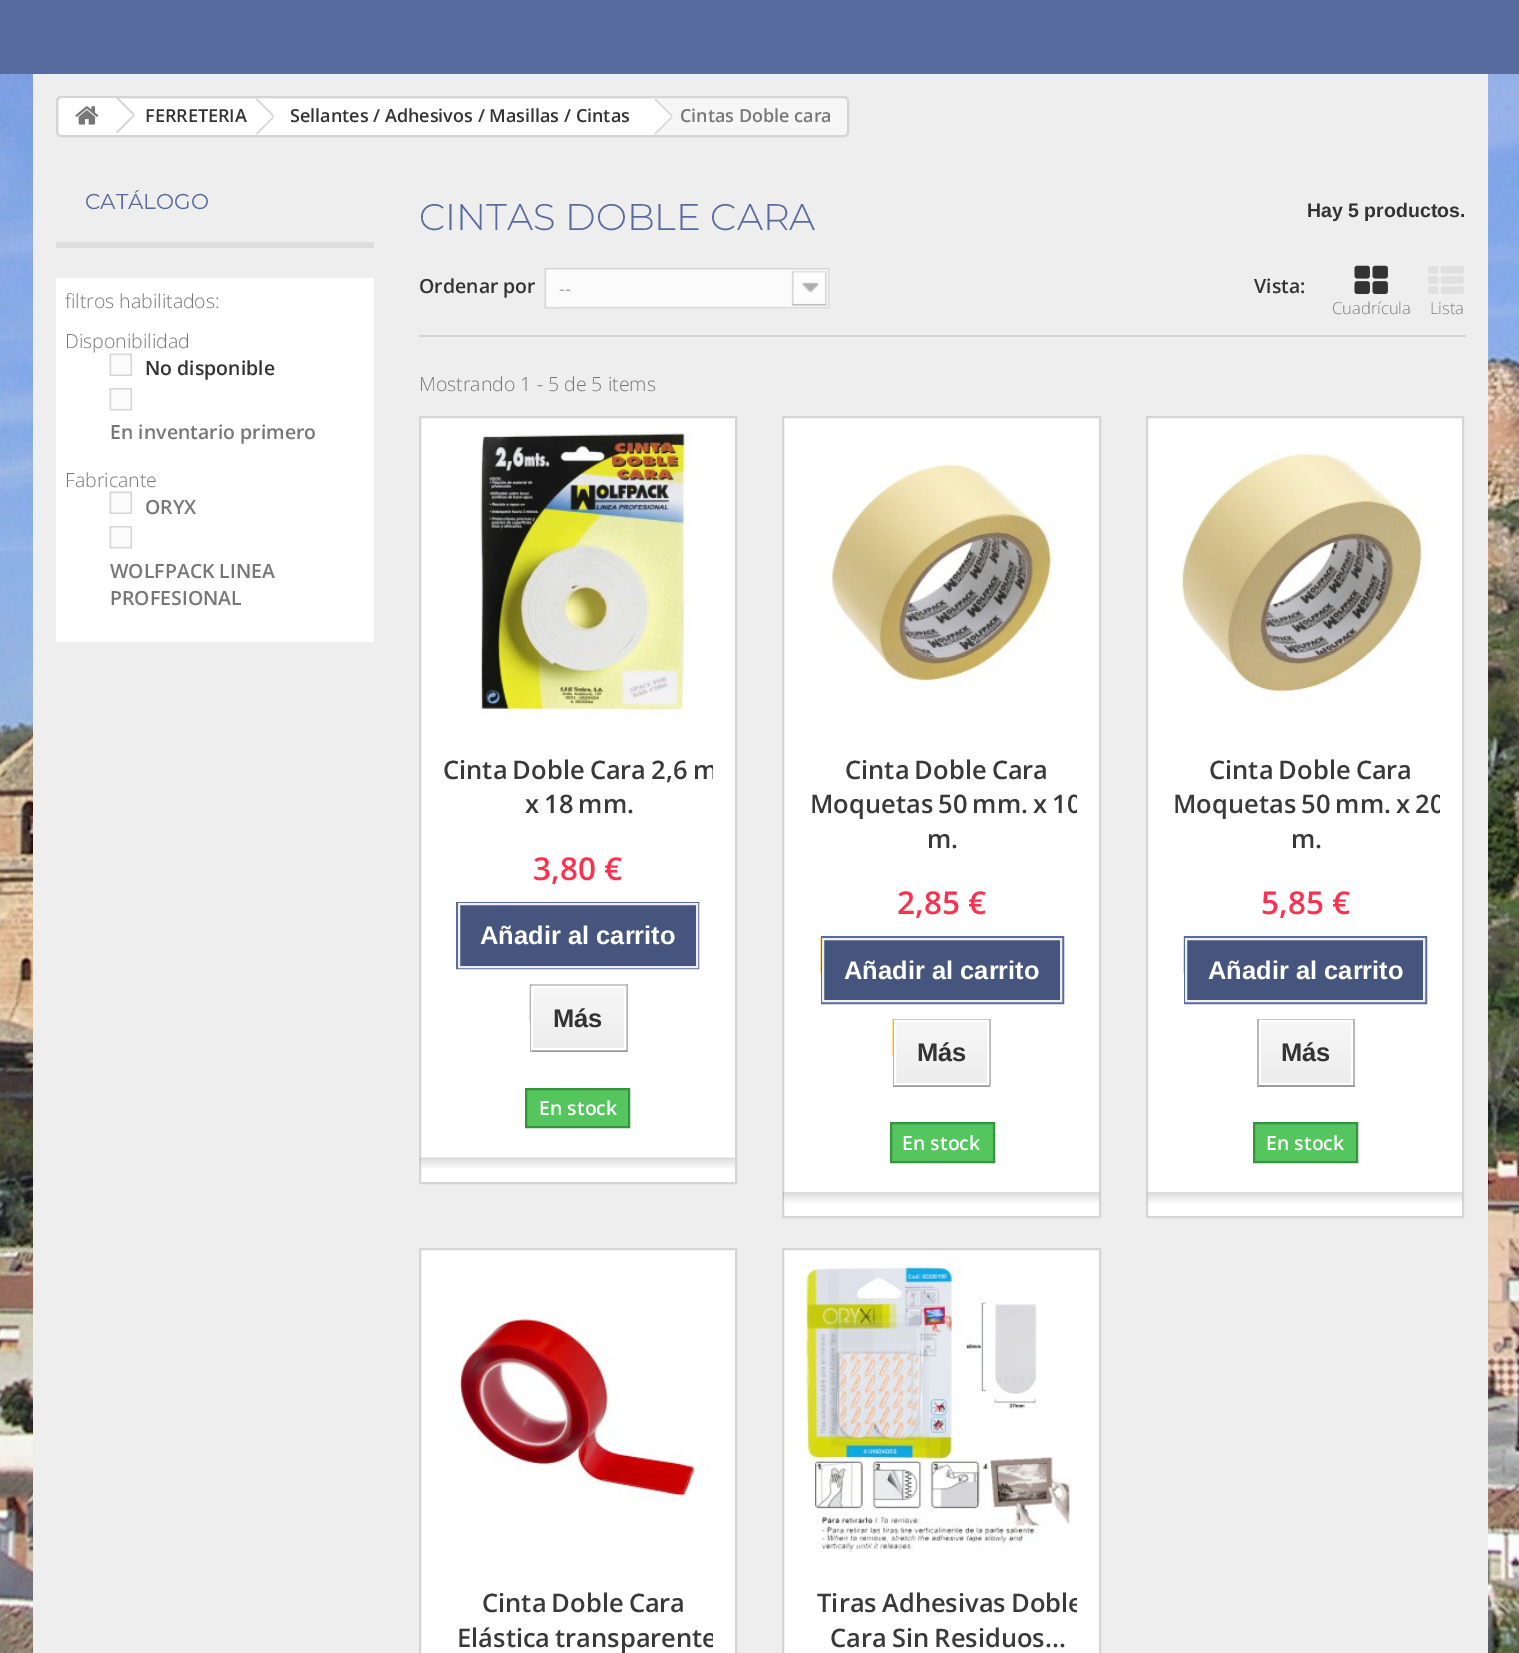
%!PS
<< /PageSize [1519 1653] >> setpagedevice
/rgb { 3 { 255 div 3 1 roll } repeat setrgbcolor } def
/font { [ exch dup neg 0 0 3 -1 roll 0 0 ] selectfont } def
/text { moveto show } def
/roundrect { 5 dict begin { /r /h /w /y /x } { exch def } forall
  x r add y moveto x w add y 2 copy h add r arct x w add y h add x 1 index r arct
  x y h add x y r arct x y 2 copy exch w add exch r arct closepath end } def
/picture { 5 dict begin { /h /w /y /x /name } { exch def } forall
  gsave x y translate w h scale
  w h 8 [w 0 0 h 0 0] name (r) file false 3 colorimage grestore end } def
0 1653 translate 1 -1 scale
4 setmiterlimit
255 255 255 rgb
0 0 1519 1653 rectfill
88 107 158 rgb
0 0 1519 74 rectfill
(img_01.rgb) 0 74 1519 1579 picture
238 238 238 rgb
33 74 1455 1579 rectfill
246 246 246 rgb
57 97 791 39 4 roundrect gsave fill grestore
214 212 212 rgb
2 setlinewidth
stroke
255 255 255 rgb
64 98 moveto 52 0 rlineto 0 37 rlineto -52 0 rlineto -3 0 -5 -2 -5 -5 rcurveto 0 -27 rlineto 0 -3 2 -5 5 -5 rcurveto closepath fill
116 99 142 36 rectfill
118.5 98 moveto -4.5 0 rlineto -14.5 15 rlineto -1.5 1 -1.5 3 0 4 rcurveto 14.5 15 rlineto 1.5 1 3 1 4.5 0 rcurveto 14.5 -15 rlineto 1.5 -1 1.5 -3 0 -4 rcurveto closepath fill
(img_02.rgb) 75 106 24 19 picture
214 212 212 rgb
118.5 98 moveto 16 16 rlineto -1.5 1 rlineto -17 -17 rlineto closepath 133 115 moveto 1.5 1 rlineto -17 17 rlineto -1.5 -1 rlineto closepath fill
255 255 255 rgb
273 99.5 moveto 15 15 rlineto 1 1 1 3 0 4 rcurveto -15 15 rlineto -1 1 -3 1 -4 0 rcurveto -15 -15 rlineto -1 -1 -1 -3 0 -4 rcurveto 15 -15 rlineto 1 -1.5 3 -1.5 4 0 rcurveto closepath fill
258 99 395 36 rectfill
214 212 212 rgb
257 98.5 moveto 17 17 rlineto -1 1 rlineto -17 -17 rlineto closepath fill
273 116.5 moveto 1 1 rlineto -17 17 rlineto -1 -1 rlineto closepath fill
255 255 255 rgb
656.5 99.5 moveto 15 15 rlineto 1 1 1 3 0 4 rcurveto -15 15 rlineto -1.5 1 -3 1 -4.5 0 rcurveto -14.5 -15 rlineto -1.5 -1 -1.5 -3 0 -4 rcurveto 14.5 -15 rlineto 1.5 -1.5 3 -1.5 4.5 0 rcurveto closepath fill
214 212 212 rgb
655.5 98.5 moveto 17 17 rlineto -1 1 rlineto -17 -17 rlineto closepath fill
671.5 116.5 moveto 1 1 rlineto -17 17 rlineto -1 -1 rlineto closepath fill
221 221 221 rgb
56 242 318 6 rectfill
255 255 255 rgb
56 278 318 364 rectfill
(img_03.rgb) 109 353 23 23 picture
(img_04.rgb) 109 388 23 23 picture
(img_03.rgb) 109 491 23 23 picture
(img_04.rgb) 109 526 23 23 picture
214 212 212 rgb
419 335 1047 2 rectfill
(img_05.rgb) 544 268 16 41 picture
(img_06.rgb) 559 268 271 41 picture
(img_07.rgb) 1354 265 34 29 picture
(img_08.rgb) 1428 266 36 28 picture
255 255 255 rgb
420 417 moveto 316 0 rlineto 0 766 rlineto -316 0 rlineto closepath gsave fill grestore
214 212 212 rgb
stroke
(img_09.rgb) 479 430 213 288 picture
88 107 158 rgb
457 903 241 65 rectstroke
70 85 125 rgb
459 904 moveto 238 0 rlineto 0 63 rlineto -238 0 rlineto closepath gsave fill grestore
238 238 238 rgb
stroke
(img_10.rgb) 529 985 1 37 picture
202 202 202 rgb
530 984 97 2 rectfill
183 183 183 rgb
626 984 2 68 rectfill
154 154 154 rgb
530 1050 97 2 rectfill
183 183 183 rgb
530 984 2 68 rectfill
gsave 533 988 moveto 91 0 rlineto 0 60 rlineto -91 0 rlineto closepath clip newpath
<< /ShadingType 2 /ColorSpace /DeviceRGB /Coords [578 987 578 1049] /Extend [true true] /Function << /FunctionType 2 /Domain [0 1] /C0 [0.969 0.969 0.969] /C1 [0.929 0.929 0.929] /N 1 >> >> shfill grestore
255 255 255 rgb
532 987 93 62 rectstroke
85 198 94 rgb
526 1089 moveto 103 0 rlineto 0 38 rlineto -103 0 rlineto closepath gsave fill grestore
54 148 62 rgb
stroke
(img_11.rgb) 420 1157 315 11 picture
255 255 255 rgb
783 417 moveto 317 0 rlineto 0 800 rlineto -317 0 rlineto closepath gsave fill grestore
214 212 212 rgb
stroke
(img_12.rgb) 829 460 227 228 picture
(img_10.rgb) 820 937 1 37 picture
88 107 158 rgb
822 937 241 66 rectstroke
70 85 125 rgb
823 939 moveto 238 0 rlineto 0 62 rlineto -238 0 rlineto closepath gsave fill grestore
238 238 238 rgb
stroke
(img_13.rgb) 892 1019 1 37 picture
202 202 202 rgb
893 1019 97 1 rectfill
183 183 183 rgb
989 1019 2 67 rectfill
154 154 154 rgb
893 1085 97 2 rectfill
183 183 183 rgb
893 1019 2 67 rectfill
gsave 896 1022 moveto 91 0 rlineto 0 61 rlineto -91 0 rlineto closepath clip newpath
<< /ShadingType 2 /ColorSpace /DeviceRGB /Coords [941 1022 941 1083] /Extend [true true] /Function << /FunctionType 2 /Domain [0 1] /C0 [0.969 0.969 0.969] /C1 [0.929 0.929 0.929] /N 1 >> >> shfill grestore
255 255 255 rgb
895 1021 93 63 rectstroke
85 198 94 rgb
891 1123 moveto 103 0 rlineto 0 39 rlineto -103 0 rlineto closepath gsave fill grestore
54 148 62 rgb
stroke
(img_14.rgb) 783 1192 317 11 picture
255 255 255 rgb
1147 417 moveto 316 0 rlineto 0 800 rlineto -316 0 rlineto closepath gsave fill grestore
214 212 212 rgb
stroke
(img_15.rgb) 1181 448 252 256 picture
(img_10.rgb) 1183 937 1 37 picture
88 107 158 rgb
1185 937 241 66 rectstroke
70 85 125 rgb
1186 939 moveto 238 0 rlineto 0 62 rlineto -238 0 rlineto closepath gsave fill grestore
238 238 238 rgb
stroke
202 202 202 rgb
1257 1019 98 1 rectfill
183 183 183 rgb
1353 1019 2 67 rectfill
154 154 154 rgb
1257 1085 98 2 rectfill
183 183 183 rgb
1257 1019 2 67 rectfill
gsave 1261 1022 moveto 90 0 rlineto 0 61 rlineto -90 0 rlineto closepath clip newpath
<< /ShadingType 2 /ColorSpace /DeviceRGB /Coords [1306 1022 1306 1083] /Extend [true true] /Function << /FunctionType 2 /Domain [0 1] /C0 [0.969 0.969 0.969] /C1 [0.929 0.929 0.929] /N 1 >> >> shfill grestore
85 198 94 rgb
1254 1123 moveto 103 0 rlineto 0 39 rlineto -103 0 rlineto closepath gsave fill grestore
54 148 62 rgb
stroke
(img_16.rgb) 1147 1192 316 11 picture
255 255 255 rgb
420 1249 moveto 316 0 rlineto 0 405 rlineto -316 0 rlineto closepath gsave fill grestore
214 212 212 rgb
stroke
(img_17.rgb) 452 1318 258 185 picture
255 255 255 rgb
783 1249 moveto 317 0 rlineto 0 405 rlineto -317 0 rlineto closepath gsave fill grestore
214 212 212 rgb
stroke
(img_18.rgb) 796 1262 278 290 picture
/OpenSans-SemiBold 18 font
51 51 51 rgb
(FERRETERIA) 145 122 text
(Sellantes / Adhesivos / Masillas / Cintas) 290 122 text
119 119 119 rgb
(Cintas Doble cara) 680 122 text
/Montserrat-Regular 21.5 font
88 107 158 rgb
(CATÁLOGO) 85 209 text
/OpenSans-Light 19.5 font
119 119 119 rgb
(filtros habilitados:) 65 308 text
(Disponibilidad) 65 348 text
/OpenSans-SemiBold 19.5 font
51 51 51 rgb
(No disponible) 145 375 text
119 119 119 rgb
(En inventario primero) 110 439 text
/OpenSans-Light 19.5 font
(Fabricante) 65 487 text
/OpenSans-SemiBold 19.5 font
(ORYX) 145 514 text
(WOLFPACK LINEA) 110 578 text
(PROFESIONAL) 110 605 text
/Montserrat-Light 37 font
88 107 158 rgb
(CINTAS DOBLE CARA) 419 230 text
/LiberationSans-Bold 19.5 font
51 51 51 rgb
(Hay 5 productos.) 1307 217 text
/OpenSans-SemiBold 19.5 font
(Ordenar por) 419 293 text
/OpenSans-Light 18 font
102 102 102 rgb
(--) 559 295 text
/OpenSans-SemiBold 19.5 font
51 51 51 rgb
(Vista:) 1254 293 text
/OpenSans-Light 16.5 font
128 128 128 rgb
(Cuadrícula) 1332 314 text
(Lista) 1430 314 text
/OpenSans-Light 19.5 font
119 119 119 rgb
(Mostrando 1 - 5 de 5 items) 419 391 text
gsave
443 752 270 69 rectclip
/OpenSans-SemiBold 25.5 font
58 57 57 rgb
443 779 moveto -1.5 0 32 (Cinta Doble Cara 2,6 m) widthshow
grestore
/OpenSans-SemiBold 25.5 font
58 57 57 rgb
525 813 moveto -1.5 0 32 (x 18 mm.) widthshow
/OpenSans-SemiBold 31.5 font
255 48 78 rgb
(3,80 €) 533 880 text
/LiberationSans-Bold 25.5 font
255 255 255 rgb
(Añadir al carrito) 480 944 text
51 51 51 rgb
(Más) 553 1027 text
/OpenSans-SemiBold 19.5 font
255 255 255 rgb
(En stock) 539 1115 text
/OpenSans-SemiBold 25.5 font
58 57 57 rgb
845 779 moveto -1.5 0 32 (Cinta Doble Cara) widthshow
gsave
806 752 271 103 rectclip
810 813 moveto -1.5 0 32 (Moquetas 50 mm. x 10) widthshow
grestore
(m.) 927 848 text
/OpenSans-SemiBold 31.5 font
255 48 78 rgb
(2,85 €) 897 914 text
/LiberationSans-Bold 25.5 font
255 255 255 rgb
(Añadir al carrito) 844 979 text
51 51 51 rgb
(Más) 917 1061 text
/OpenSans-SemiBold 19.5 font
255 255 255 rgb
(En stock) 902 1150 text
/OpenSans-SemiBold 25.5 font
58 57 57 rgb
1209 779 moveto -1.5 0 32 (Cinta Doble Cara) widthshow
gsave
1170 752 270 103 rectclip
1173 813 moveto -1.5 0 32 (Moquetas 50 mm. x 20) widthshow
grestore
(m.) 1291 848 text
/OpenSans-SemiBold 31.5 font
255 48 78 rgb
(5,85 €) 1261 914 text
/LiberationSans-Bold 25.5 font
255 255 255 rgb
(Añadir al carrito) 1208 979 text
51 51 51 rgb
(Más) 1281 1061 text
/OpenSans-SemiBold 19.5 font
255 255 255 rgb
(En stock) 1266 1150 text
/OpenSans-SemiBold 25.5 font
58 57 57 rgb
482 1612 moveto -1.5 0 32 (Cinta Doble Cara) widthshow
gsave
443 1586 270 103 rectclip
457 1647 moveto -1.5 0 32 (Elástica transparente) widthshow
grestore
gsave
806 1586 271 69 rectclip
817 1612 moveto -1.5 0 32 (Tiras Adhesivas Doble) widthshow
grestore
830 1647 moveto -1.5 0 32 (Cara Sin Residuos...) widthshow
showpage
